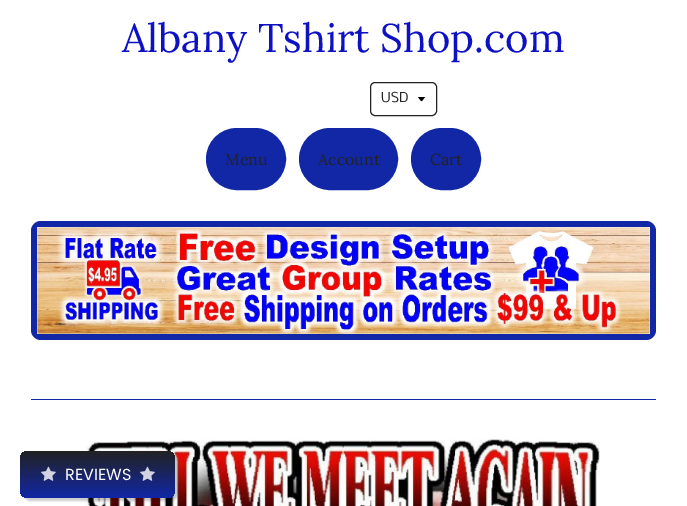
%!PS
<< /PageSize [687 506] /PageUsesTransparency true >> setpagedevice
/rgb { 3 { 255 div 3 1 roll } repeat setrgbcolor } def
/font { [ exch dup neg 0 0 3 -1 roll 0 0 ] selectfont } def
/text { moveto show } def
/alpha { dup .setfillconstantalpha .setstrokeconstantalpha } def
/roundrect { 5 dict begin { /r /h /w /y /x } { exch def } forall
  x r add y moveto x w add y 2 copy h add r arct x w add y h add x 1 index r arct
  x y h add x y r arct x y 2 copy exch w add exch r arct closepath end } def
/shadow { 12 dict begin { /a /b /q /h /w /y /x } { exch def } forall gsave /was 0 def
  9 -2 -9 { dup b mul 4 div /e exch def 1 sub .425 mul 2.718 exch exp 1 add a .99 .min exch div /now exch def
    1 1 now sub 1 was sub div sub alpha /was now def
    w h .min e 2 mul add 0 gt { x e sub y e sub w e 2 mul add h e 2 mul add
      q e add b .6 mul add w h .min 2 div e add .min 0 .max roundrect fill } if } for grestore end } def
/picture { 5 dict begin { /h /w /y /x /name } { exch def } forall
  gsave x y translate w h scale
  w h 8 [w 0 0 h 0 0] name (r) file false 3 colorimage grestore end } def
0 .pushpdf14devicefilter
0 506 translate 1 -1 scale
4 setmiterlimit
255 255 255 rgb
0 0 687 506 rectfill
0 0 0 rgb
418 97 moveto 4.5 5.5 2.5 5.5 7 0 rcurveto closepath fill
34 34 34 rgb
370.5 82.5 66 33 4.5 roundrect stroke
17 39 166 rgb
207.5 129.5 77 59 29.5 roundrect gsave fill grestore
3 setlinewidth
stroke
300.5 129.5 96 59 29.5 roundrect gsave fill grestore
stroke
412.5 129.5 67 59 29.5 roundrect gsave fill grestore
stroke
31 221 625 119 10 roundrect fill
(img_01.rgb) 37 227 613 107 picture
31 399 625 1 rectfill
(img_02.rgb) 85 438 515 68 picture
0 0 0 rgb
23 454 155 47 8 1 0.2 shadow
gsave 20 451 155 47 8 roundrect clip newpath
<< /ShadingType 2 /ColorSpace /DeviceRGB /Coords [98 451 98 498] /Extend [true true] /Function << /FunctionType 2 /Domain [0 1] /C0 [0.133 0.133 0.133] /C1 [0.067 0.153 0.651] /N 1 >> >> shfill grestore
(img_03.rgb) 41 466 15 15 picture
(img_03.rgb) 140 466 15 15 picture
/Lora-Regular 40 font
14 17 195 rgb
(Albany Tshirt Shop.com) 122 52 text
/Nobile-Regular 13 font
34 34 34 rgb
(USD) 381 102 text
/Lora-Regular 16 font
(Menu) 225 165 text
(Account) 318 165 text
(Cart) 430 165 text
/Poppins-Regular 16 font
255 255 255 rgb
(REVIEWS) 65 480 text
.poppdf14devicefilter showpage
